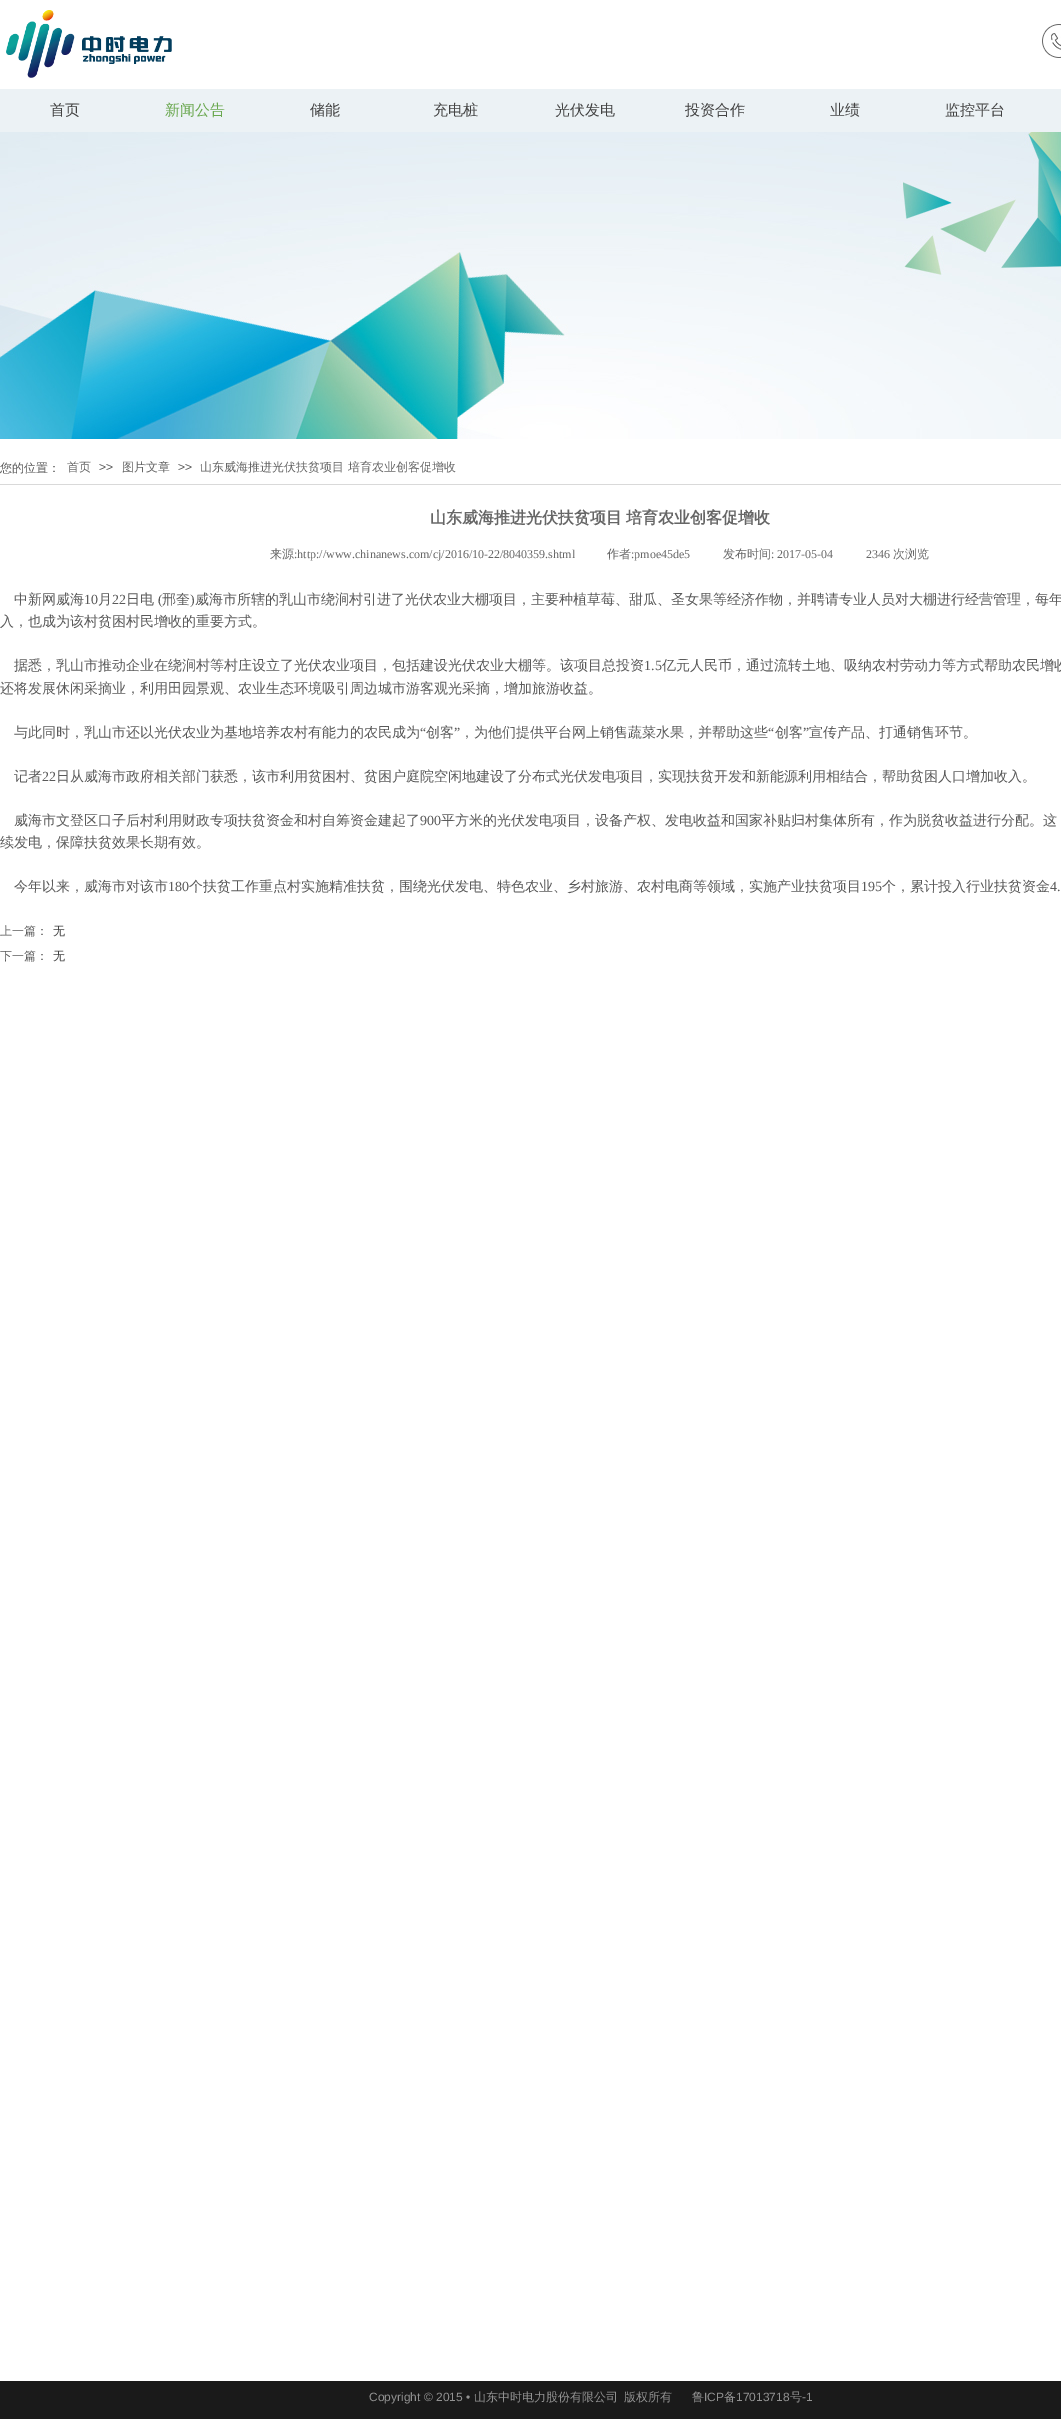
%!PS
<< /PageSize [1061 2419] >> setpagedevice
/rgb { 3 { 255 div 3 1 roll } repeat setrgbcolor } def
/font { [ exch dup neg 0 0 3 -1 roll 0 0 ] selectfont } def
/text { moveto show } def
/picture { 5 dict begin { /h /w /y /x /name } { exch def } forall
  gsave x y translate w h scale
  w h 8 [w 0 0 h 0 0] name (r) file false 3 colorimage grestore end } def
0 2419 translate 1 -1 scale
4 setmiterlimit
255 255 255 rgb
0 0 1061 2419 rectfill
(img_01.rgb) 6 10 166 68 picture
(img_02.rgb) 1042 24 19 34 picture
236 242 245 rgb
0 89 1061 43 rectfill
(img_03.rgb) 0 132 1061 307 picture
217 217 217 rgb
0 484 1061 1 rectfill
26 26 26 rgb
0 2381 1061 38 rectfill
/WenQuanYiZenHei-Medium 15 font
67 67 67 rgb
(首页) 50 115 text
106 168 79 rgb
(新闻公告) 165 115 text
67 67 67 rgb
(储能) 310 115 text
(充电桩) 433 115 text
(光伏发电) 555 115 text
(投资合作) 685 115 text
(业绩) 830 115 text
(监控平台) 945 115 text
/WenQuanYiZenHei-Medium 12 font
90 90 90 rgb
(您的位置：) 0 472 text
102 102 102 rgb
(首页) 67 471 text
/LiberationSans-Regular 12 font
90 90 90 rgb
(>>) 99 471 text
/WenQuanYiZenHei-Medium 12 font
102 102 102 rgb
(图片文章) 122 471 text
/LiberationSans-Regular 12 font
90 90 90 rgb
(>>) 178 471 text
/WenQuanYiZenHei-Medium 12 font
102 102 102 rgb
(山东威海推进光伏扶贫项目 培育农业创客促增收) 200 471 text
/WenQuanYiZenHei-Bold 16 font
430 523 moveto -1 0 32 (山东威海推进光伏扶贫项目 培育农业创客促增收) widthshow
/WenQuanYiZenHei-Medium 12 font
(来源) 270 558 text
/LiberationSerif-Regular 12 font
(:http://www.chinanews.com/cj/2016/10-22/8040359.shtml) 294 558 text
/WenQuanYiZenHei-Medium 12 font
(作者) 607 558 text
/LiberationSerif-Regular 12 font
(:pmoe45de5) 631 558 text
/WenQuanYiZenHei-Medium 12 font
(发布时间) 723 558 text
/LiberationSerif-Regular 12 font
(: 2017-05-04) 771 558 text
(2346) 866 558 text
/WenQuanYiZenHei-Medium 12 font
(次浏览) 893 558 text
/WenQuanYiZenHei-Medium 14 font
90 90 90 rgb
(中新网威海) 14 604 text
/LiberationSerif-Regular 14 font
(10) 84 604 text
/WenQuanYiZenHei-Medium 14 font
(月) 98 604 text
/LiberationSerif-Regular 14 font
(22) 112 604 text
/WenQuanYiZenHei-Medium 14 font
(日电) 126 604 text
/LiberationSerif-Regular 14 font
(\() 158 604 text
/WenQuanYiZenHei-Medium 14 font
(邢奎) 162 604 text
/LiberationSerif-Regular 14 font
(\)) 190 604 text
/WenQuanYiZenHei-Medium 14 font
(威海市所辖的乳山市绕涧村引进了光伏农业大棚项目，主要种植草莓、甜瓜、圣女果等经济作物，并聘请专业人员对大棚进行经营管理，每年) 195 604 text
(入，也成为该村贫困村民增收的重要方式。) 0 626 text
(据悉，乳山市推动企业在绕涧村等村庄设立了光伏农业项目，包括建设光伏农业大棚等。该项目总投资) 14 670 text
/LiberationSerif-Regular 14 font
(1.5) 644 670 text
/WenQuanYiZenHei-Medium 14 font
(亿元人民币，通过流转土地、吸纳农村劳动力等方式帮助农民增收) 662 670 text
(还将发展休闲采摘业，利用田园景观、农业生态环境吸引周边城市游客观光采摘，增加旅游收益。) 0 693 text
(与此同时，乳山市还以光伏农业为基地培养农村有能力的农民成为) 14 737 text
/LiberationSerif-Regular 14 font
(“) 420 737 text
/WenQuanYiZenHei-Medium 14 font
(创客) 426 737 text
/LiberationSerif-Regular 14 font
(”) 454 737 text
/WenQuanYiZenHei-Medium 14 font
(，为他们提供平台网上销售蔬菜水果，并帮助这些) 460 737 text
/LiberationSerif-Regular 14 font
(“) 768 737 text
/WenQuanYiZenHei-Medium 14 font
(创客) 775 737 text
/LiberationSerif-Regular 14 font
(”) 803 737 text
/WenQuanYiZenHei-Medium 14 font
(宣传产品、打通销售环节。) 809 737 text
(记者) 14 781 text
/LiberationSerif-Regular 14 font
(22) 42 781 text
/WenQuanYiZenHei-Medium 14 font
(日从威海市政府相关部门获悉，该市利用贫困村、贫困户庭院空闲地建设了分布式光伏发电项目，实现扶贫开发和新能源利用相结合，帮助贫困人口增加收入。) 56 781 text
(威海市文登区口子后村利用财政专项扶贫资金和村自筹资金建起了) 14 825 text
/LiberationSerif-Regular 14 font
(900) 420 825 text
/WenQuanYiZenHei-Medium 14 font
(平方米的光伏发电项目，设备产权、发电收益和国家补贴归村集体所有，作为脱贫收益进行分配。这) 441 825 text
(续发电，保障扶贫效果长期有效。) 0 847 text
(今年以来，威海市对该市) 14 891 text
/LiberationSerif-Regular 14 font
(180) 168 891 text
/WenQuanYiZenHei-Medium 14 font
(个扶贫工作重点村实施精准扶贫，围绕光伏发电、特色农业、乡村旅游、农村电商等领域，实施产业扶贫项目) 189 891 text
/LiberationSerif-Regular 14 font
(195) 861 891 text
/WenQuanYiZenHei-Medium 14 font
(个，累计投入行业扶贫资金) 882 891 text
/LiberationSerif-Regular 14 font
(4.) 1050 891 text
/WenQuanYiZenHei-Medium 12 font
(上一篇：) 0 935 text
67 67 67 rgb
(无) 53 935 text
90 90 90 rgb
(下一篇：) 0 960 text
67 67 67 rgb
(无) 53 960 text
/LiberationSans-Regular 12 font
146 146 146 rgb
(Copyright © 2015 •) 369 2401 text
/WenQuanYiZenHei-Medium 12 font
(山东中时电力股份有限公司) 474 2401 text
(版权所有) 624 2401 text
(鲁) 692 2401 text
/LiberationSans-Regular 12 font
(ICP) 704 2401 text
/WenQuanYiZenHei-Medium 12 font
(备) 724 2401 text
/LiberationSans-Regular 12 font
(17013718) 736 2401 text
/WenQuanYiZenHei-Medium 12 font
(号) 790 2401 text
/LiberationSans-Regular 12 font
(-1) 802 2401 text
showpage
